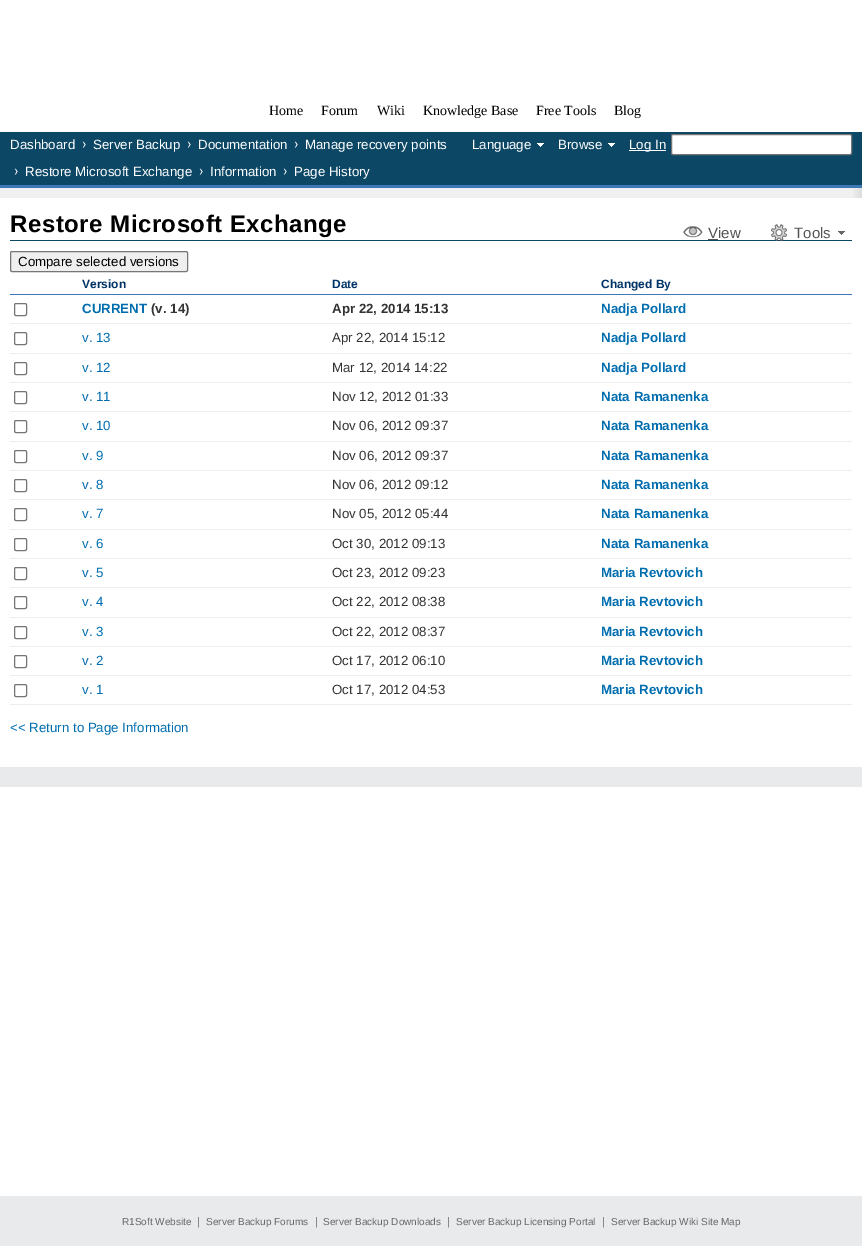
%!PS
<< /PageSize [862 1246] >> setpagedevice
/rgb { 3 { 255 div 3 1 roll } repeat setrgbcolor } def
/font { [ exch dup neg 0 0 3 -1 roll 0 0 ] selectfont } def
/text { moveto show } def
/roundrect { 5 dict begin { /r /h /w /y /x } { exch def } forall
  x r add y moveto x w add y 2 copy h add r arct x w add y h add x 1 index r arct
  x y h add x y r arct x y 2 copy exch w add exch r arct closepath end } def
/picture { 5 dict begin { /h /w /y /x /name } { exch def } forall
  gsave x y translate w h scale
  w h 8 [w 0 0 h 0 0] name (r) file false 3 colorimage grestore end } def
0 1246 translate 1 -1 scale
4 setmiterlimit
255 255 255 rgb
0 0 862 1246 rectfill
233 234 235 rgb
0 767 862 20 rectfill
12 71 102 rgb
0 132 862 53 rectfill
60 120 181 rgb
0 185 862 3 rectfill
(img_01.rgb) 82 141 4 7 picture
(img_01.rgb) 187 141 4 7 picture
(img_01.rgb) 294 141 4 7 picture
(img_01.rgb) 14 168 4 7 picture
(img_01.rgb) 199 168 4 7 picture
(img_01.rgb) 283 168 4 7 picture
(img_02.rgb) 537 143 7 4 picture
(img_02.rgb) 608 143 7 4 picture
255 255 255 rgb
629 150 37 1 rectfill
671.5 134.5 180 20 1.5 roundrect gsave fill grestore
118 118 118 rgb
stroke
240 240 240 rgb
0 188 853 10 rectfill
(img_03.rgb) 853 188 9 10 picture
12 71 102 rgb
10 240 842 1 rectfill
(img_04.rgb) 683 226 20 12 picture
83 83 83 rgb
708 239 10 1 rectfill
(img_05.rgb) 838 231 7 4 picture
(img_06.rgb) 771 224 16 17 picture
239 239 239 rgb
10.5 251.5 177 20 1.5 roundrect gsave fill grestore
118 118 118 rgb
stroke
60 120 181 rgb
10 294 842 1 rectfill
238 238 238 rgb
10 323 842 1 rectfill
118 118 118 rgb
14.5 303.5 12 12 1.5 roundrect stroke
238 238 238 rgb
10 353 842 1 rectfill
118 118 118 rgb
14.5 332.5 12 12 1.5 roundrect stroke
238 238 238 rgb
10 382 842 1 rectfill
118 118 118 rgb
14.5 362.5 12 12 1.5 roundrect stroke
238 238 238 rgb
10 411 842 1 rectfill
118 118 118 rgb
14.5 391.5 12 12 1.5 roundrect stroke
238 238 238 rgb
10 441 842 1 rectfill
118 118 118 rgb
14.5 420.5 12 12 1.5 roundrect stroke
238 238 238 rgb
10 470 842 1 rectfill
118 118 118 rgb
14.5 450.5 12 12 1.5 roundrect stroke
238 238 238 rgb
10 499 842 1 rectfill
118 118 118 rgb
14.5 479.5 12 12 1.5 roundrect stroke
238 238 238 rgb
10 529 842 1 rectfill
118 118 118 rgb
14.5 508.5 12 12 1.5 roundrect stroke
238 238 238 rgb
10 558 842 1 rectfill
118 118 118 rgb
14.5 538.5 12 12 1.5 roundrect stroke
238 238 238 rgb
10 587 842 1 rectfill
118 118 118 rgb
14.5 567.5 12 12 1.5 roundrect stroke
238 238 238 rgb
10 617 842 1 rectfill
118 118 118 rgb
14.5 596.5 12 12 1.5 roundrect stroke
238 238 238 rgb
10 646 842 1 rectfill
118 118 118 rgb
14.5 626.5 12 12 1.5 roundrect stroke
238 238 238 rgb
10 675 842 1 rectfill
118 118 118 rgb
14.5 655.5 12 12 1.5 roundrect stroke
238 238 238 rgb
10 704 842 1 rectfill
118 118 118 rgb
14.5 684.5 12 12 1.5 roundrect stroke
233 234 235 rgb
0 1196 862 50 rectfill
/LiberationSerif-Regular 14 font
0 0 0 rgb
(Home) 269 115 text
(Forum) 321 115 text
(Wiki) 377 115 text
(Knowledge Base) 423 115 text
(Free Tools) 536 115 text
(Blog) 614 115 text
/LiberationSans-Regular 13.3 font
255 255 255 rgb
(Dashboard) 10 149 text
(Server Backup) 93 149 text
(Documentation) 198 149 text
(Manage recovery points) 305 149 text
(Restore Microsoft Exchange) 25 176 text
(Information) 210 176 text
(Page History) 294 176 text
(Language) 472 149 text
(Browse) 558 149 text
(Log In) 629 149 text
/LiberationSans-Bold 24 font
0 0 0 rgb
10 232 moveto 0.5 0 (Restore Microsoft Exchange) ashow
/LiberationSans-Regular 15 font
83 83 83 rgb
(View) 708 238 text
(Tools) 794 238 text
/LiberationSans-Regular 13.3 font
0 0 0 rgb
(Compare selected versions) 18 266 text
/LiberationSans-Bold 12 font
0 51 102 rgb
(Version) 82 288 text
(Date) 332 288 text
(Changed By) 601 288 text
/LiberationSans-Bold 13.3 font
0 109 175 rgb
(CURRENT) 82 313 text
51 51 51 rgb
(\(v. 14\)) 151 313 text
(Apr 22, 2014 15:13) 332 313 text
0 109 175 rgb
(Nadja Pollard) 601 313 text
/LiberationSans-Regular 13.3 font
(v. 13) 82 342 text
51 51 51 rgb
(Apr 22, 2014 15:12) 332 342 text
/LiberationSans-Bold 13.3 font
0 109 175 rgb
(Nadja Pollard) 601 342 text
/LiberationSans-Regular 13.3 font
(v. 12) 82 372 text
51 51 51 rgb
(Mar 12, 2014 14:22) 332 372 text
/LiberationSans-Bold 13.3 font
0 109 175 rgb
(Nadja Pollard) 601 372 text
/LiberationSans-Regular 13.3 font
(v. 11) 82 401 text
51 51 51 rgb
(Nov 12, 2012 01:33) 332 401 text
/LiberationSans-Bold 13.3 font
0 109 175 rgb
(Nata Ramanenka) 601 401 text
/LiberationSans-Regular 13.3 font
(v. 10) 82 430 text
51 51 51 rgb
(Nov 06, 2012 09:37) 332 430 text
/LiberationSans-Bold 13.3 font
0 109 175 rgb
(Nata Ramanenka) 601 430 text
/LiberationSans-Regular 13.3 font
(v. 9) 82 460 text
51 51 51 rgb
(Nov 06, 2012 09:37) 332 460 text
/LiberationSans-Bold 13.3 font
0 109 175 rgb
(Nata Ramanenka) 601 460 text
/LiberationSans-Regular 13.3 font
(v. 8) 82 489 text
51 51 51 rgb
(Nov 06, 2012 09:12) 332 489 text
/LiberationSans-Bold 13.3 font
0 109 175 rgb
(Nata Ramanenka) 601 489 text
/LiberationSans-Regular 13.3 font
(v. 7) 82 518 text
51 51 51 rgb
(Nov 05, 2012 05:44) 332 518 text
/LiberationSans-Bold 13.3 font
0 109 175 rgb
(Nata Ramanenka) 601 518 text
/LiberationSans-Regular 13.3 font
(v. 6) 82 548 text
51 51 51 rgb
(Oct 30, 2012 09:13) 332 548 text
/LiberationSans-Bold 13.3 font
0 109 175 rgb
(Nata Ramanenka) 601 548 text
/LiberationSans-Regular 13.3 font
(v. 5) 82 577 text
51 51 51 rgb
(Oct 23, 2012 09:23) 332 577 text
/LiberationSans-Bold 13.3 font
0 109 175 rgb
(Maria Revtovich) 601 577 text
/LiberationSans-Regular 13.3 font
(v. 4) 82 606 text
51 51 51 rgb
(Oct 22, 2012 08:38) 332 606 text
/LiberationSans-Bold 13.3 font
0 109 175 rgb
(Maria Revtovich) 601 606 text
/LiberationSans-Regular 13.3 font
(v. 3) 82 636 text
51 51 51 rgb
(Oct 22, 2012 08:37) 332 636 text
/LiberationSans-Bold 13.3 font
0 109 175 rgb
(Maria Revtovich) 601 636 text
/LiberationSans-Regular 13.3 font
(v. 2) 82 665 text
51 51 51 rgb
(Oct 17, 2012 06:10) 332 665 text
/LiberationSans-Bold 13.3 font
0 109 175 rgb
(Maria Revtovich) 601 665 text
/LiberationSans-Regular 13.3 font
(v. 1) 82 694 text
51 51 51 rgb
(Oct 17, 2012 04:53) 332 694 text
/LiberationSans-Bold 13.3 font
0 109 175 rgb
(Maria Revtovich) 601 694 text
/LiberationSans-Regular 13.3 font
(<< Return to Page Information) 10 732 text
/LiberationSans-Regular 10 font
102 102 102 rgb
(R1Soft Website) 122 1225 text
/LiberationSans-Italic 11 font
(|) 197 1225 text
/LiberationSans-Regular 10 font
(Server Backup Forums) 206 1225 text
/LiberationSans-Italic 11 font
(|) 315 1225 text
/LiberationSans-Regular 10 font
(Server Backup Downloads) 323 1225 text
/LiberationSans-Italic 11 font
(|) 447 1225 text
/LiberationSans-Regular 10 font
(Server Backup Licensing Portal) 456 1225 text
/LiberationSans-Italic 11 font
(|) 602 1225 text
/LiberationSans-Regular 10 font
(Server Backup Wiki Site Map) 611 1225 text
showpage
